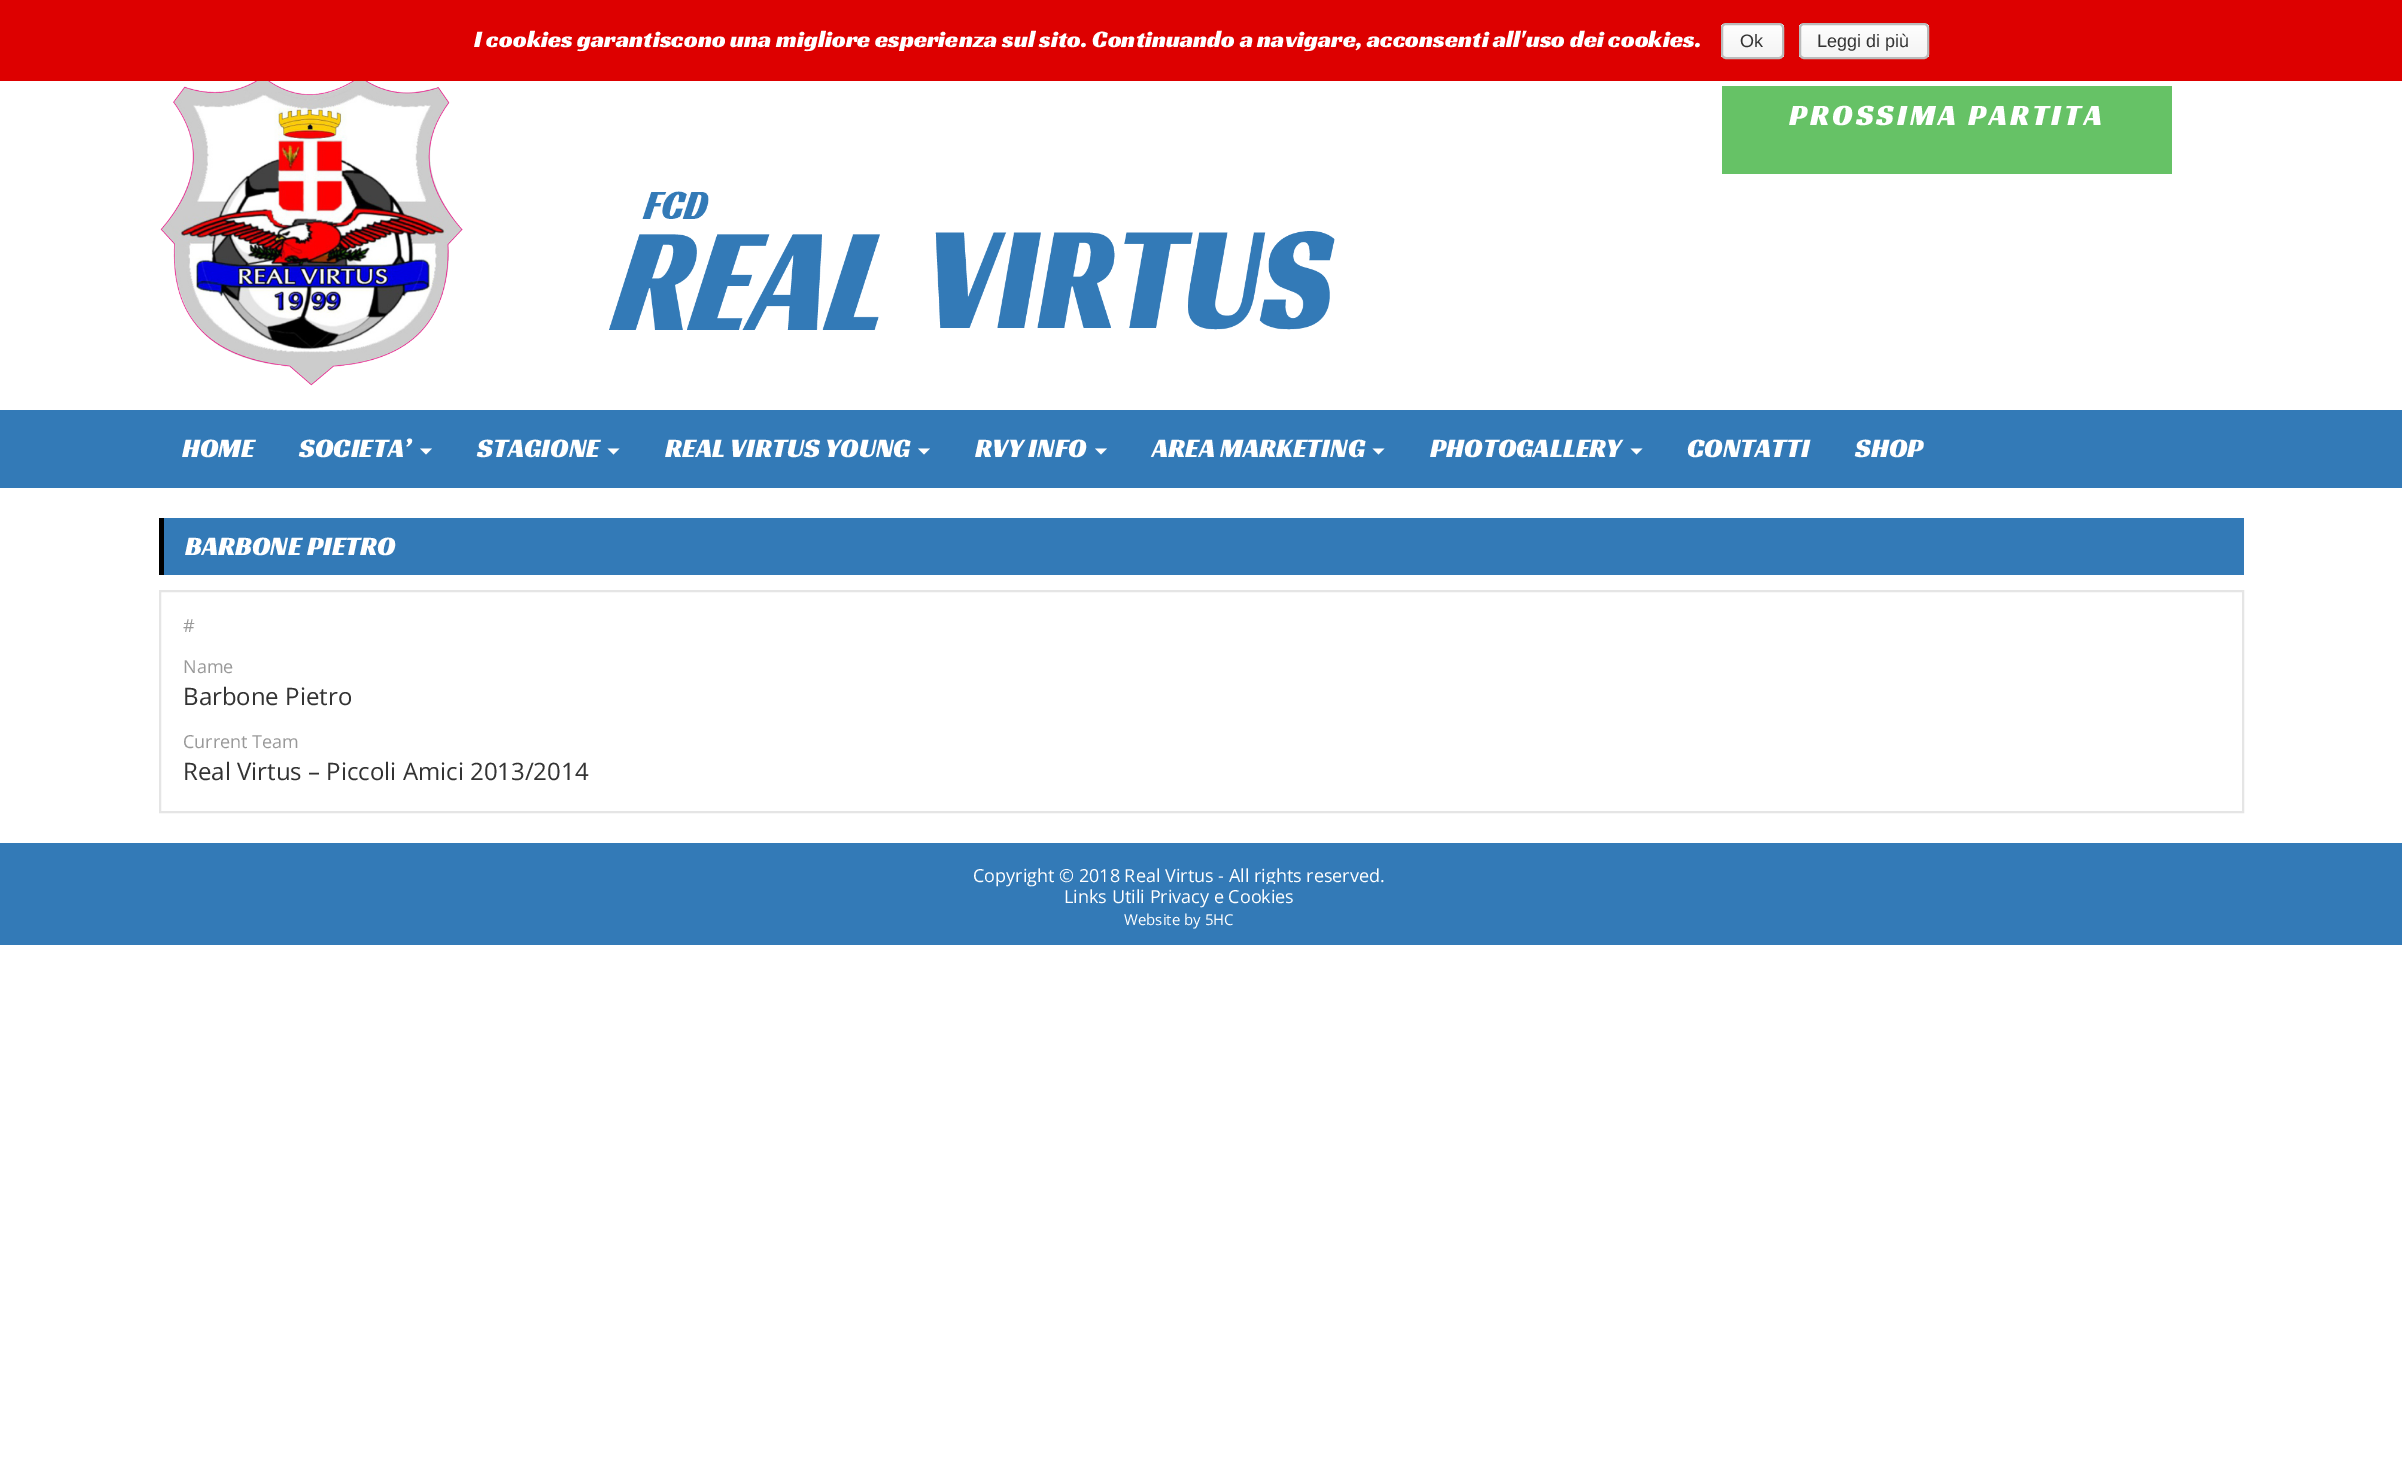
%!PS
<< /PageSize [2402 1482] >> setpagedevice
/rgb { 3 { 255 div 3 1 roll } repeat setrgbcolor } def
/font { [ exch dup neg 0 0 3 -1 roll 0 0 ] selectfont } def
/text { moveto show } def
/roundrect { 5 dict begin { /r /h /w /y /x } { exch def } forall
  x r add y moveto x w add y 2 copy h add r arct x w add y h add x 1 index r arct
  x y h add x y r arct x y 2 copy exch w add exch r arct closepath end } def
/picture { 5 dict begin { /h /w /y /x /name } { exch def } forall
  gsave x y translate w h scale
  w h 8 [w 0 0 h 0 0] name (r) file false 3 colorimage grestore end } def
0 1482 translate 1 -1 scale
4 setmiterlimit
255 255 255 rgb
0 0 2402 1482 rectfill
221 0 0 rgb
0 0 2402 81 rectfill
gsave
1721 23 63 36 5 roundrect clip newpath
gsave 1721 24 moveto 63 0 rlineto 0 33 rlineto -63 0 rlineto closepath clip newpath
<< /ShadingType 2 /ColorSpace /DeviceRGB /Coords [1752 24 1752 57] /Extend [true true] /Function << /FunctionType 2 /Domain [0 1] /C0 [0.996 0.996 0.996] /C1 [0.957 0.957 0.957] /N 1 >> >> shfill grestore
grestore
187 187 187 rgb
2 setlinewidth
1722 24 61 34 4 roundrect stroke
gsave
1799 23 130 36 5 roundrect clip newpath
gsave 1799 24 moveto 130 0 rlineto 0 33 rlineto -130 0 rlineto closepath clip newpath
<< /ShadingType 2 /ColorSpace /DeviceRGB /Coords [1864 24 1864 57] /Extend [true true] /Function << /FunctionType 2 /Domain [0 1] /C0 [0.996 0.996 0.996] /C1 [0.957 0.957 0.957] /N 1 >> >> shfill grestore
grestore
1800 24 128 34 4 roundrect stroke
(img_01.rgb) 160 81 1175 305 picture
102 194 102 rgb
1722 86 450 88 rectfill
51 122 183 rgb
0 410 2402 78 rectfill
255 255 255 rgb
420 448.5 moveto 12 0 rlineto -6 6 rlineto closepath fill
607.5 448.5 moveto 12 0 rlineto -6 6 rlineto closepath fill
918 448.5 moveto 12 0 rlineto -6 6 rlineto closepath fill
1095 448.5 moveto 12 0 rlineto -6 6 rlineto closepath fill
1372.5 448.5 moveto 12 0 rlineto -6 6 rlineto closepath fill
1630.5 448.5 moveto 12 0 rlineto -6 6 rlineto closepath fill
51 122 183 rgb
164 518 2080 57 rectfill
0 0 0 rgb
159 518 5 57 rectfill
229 229 229 rgb
160 591 2083 221 rectstroke
51 122 183 rgb
0 843 2402 102 rectfill
/RacingSansOne-Regular 24 font
255 255 255 rgb
(I cookies garantiscono una migliore esperienza sul sito. Continuando a navigare, acconsenti all'uso dei cookies.) 474 47 text
/LiberationSans-Regular 18 font
51 51 51 rgb
(Ok) 1740 47 text
(Leggi di più) 1817 47 text
/RacingSansOne-Regular 30 font
255 255 255 rgb
1789 125 moveto 3 0 (PROSSIMA PARTITA) ashow
/RacingSansOne-Regular 27 font
(HOME) 182 457 text
(SOCIETA’) 299 457 text
(STAGIONE) 477 457 text
(REAL VIRTUS YOUNG) 665 457 text
(RVY INFO) 975 457 text
(AREA MARKETING) 1152 457 text
(PHOTOGALLERY) 1430 457 text
(CONTATTI) 1687 457 text
(SHOP) 1855 457 text
(BARBONE PIETRO) 185 555 text
/OpenSans-Regular 18 font
153 153 153 rgb
(#) 183 632 text
(Name) 183 673 text
/OpenSans-Regular 24 font
51 51 51 rgb
(Barbone Pietro) 183 705 text
/OpenSans-Regular 18 font
153 153 153 rgb
(Current Team) 183 748 text
/OpenSans-Regular 24 font
51 51 51 rgb
(Real Virtus – Piccoli Amici 2013/2014) 183 780 text
/OpenSans-Regular 18 font
255 255 255 rgb
(Copyright © 2018 Real Virtus - All rights reserved.) 973 882 text
51 122 183 rgb
1266 884 9 3 rectfill
255 255 255 rgb
(Links Utili Privacy e Cookies) 1064 903 text
/OpenSans-Regular 15 font
(Website by 5HC) 1124 925 text
showpage
